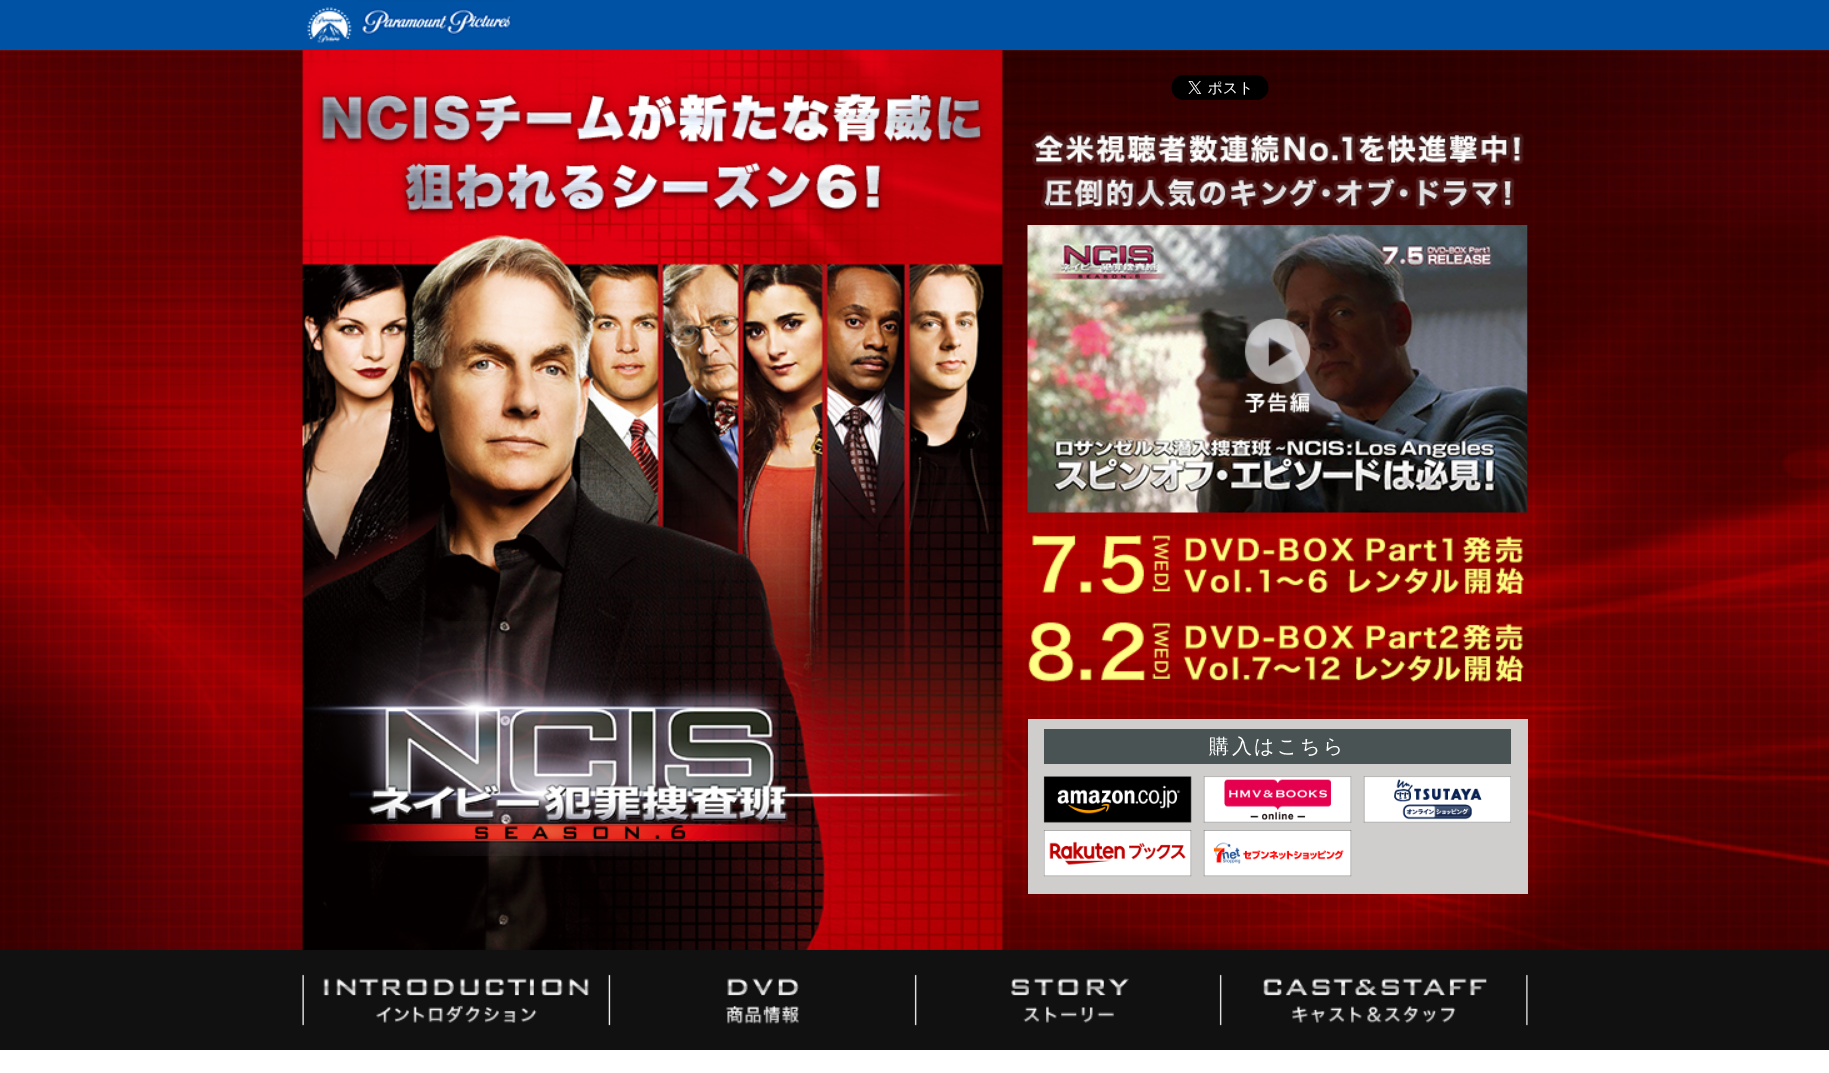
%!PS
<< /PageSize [1829 1073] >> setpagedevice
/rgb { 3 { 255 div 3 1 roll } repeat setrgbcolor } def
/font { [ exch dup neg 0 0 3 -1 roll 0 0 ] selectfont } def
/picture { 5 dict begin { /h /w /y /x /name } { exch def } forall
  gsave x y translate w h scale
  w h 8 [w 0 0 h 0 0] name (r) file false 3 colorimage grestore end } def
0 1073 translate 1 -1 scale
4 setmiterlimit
0 82 164 rgb
0 0 1829 1073 rectfill
(img_01.rgb) 307 0 208 50 picture
(img_02.rgb) 0 50 1829 900 picture
(img_03.rgb) 310 83 677 139 picture
(img_04.rgb) 1171 75 98 25 picture
(img_05.rgb) 1031 131 493 80 picture
(img_06.rgb) 1027 225 501 288 picture
(img_07.rgb) 1032 535 492 59 picture
(img_08.rgb) 303 621 665 235 picture
(img_09.rgb) 1028 622 496 60 picture
208 206 205 rgb
1028 719 500 175 rectfill
74 83 83 rgb
1044 729 467 35 rectfill
(img_10.rgb) 1043 776 149 47 picture
(img_11.rgb) 1203 776 149 47 picture
(img_12.rgb) 1363 776 148 47 picture
(img_13.rgb) 1043 830 149 47 picture
(img_14.rgb) 1203 830 149 47 picture
17 17 17 rgb
0 950 1829 100 rectfill
(img_15.rgb) 302 974 1226 52 picture
(img_16.rgb) 323 978 266 45 picture
(img_17.rgb) 726 978 73 46 picture
(img_18.rgb) 1011 978 118 45 picture
(img_19.rgb) 1263 978 224 45 picture
255 255 255 rgb
0 1050 1829 23 rectfill
/WenQuanYiZenHei-Medium 20 font
1209 753 moveto 2.5 0 (購入はこちら) ashow
showpage
